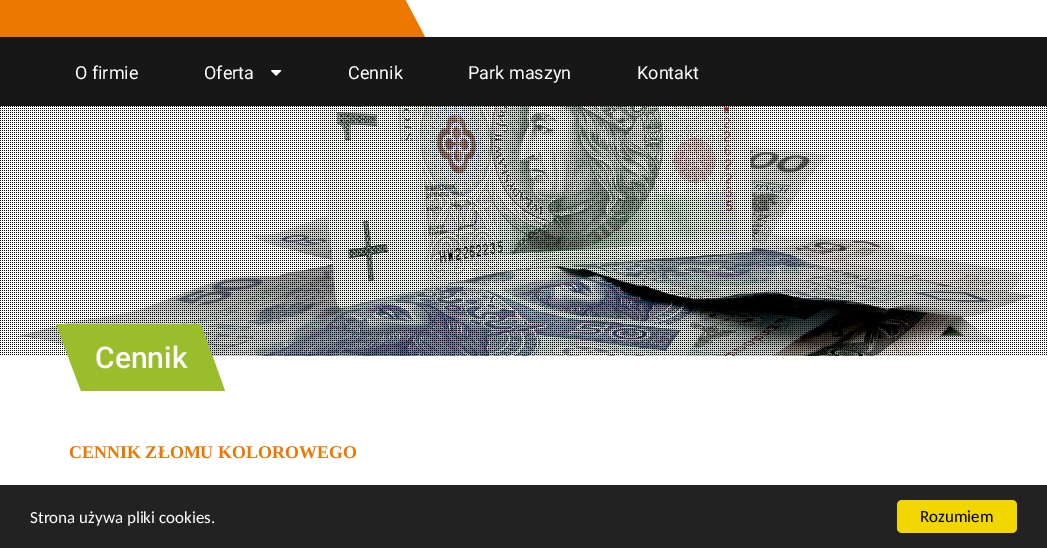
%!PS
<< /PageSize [1047 548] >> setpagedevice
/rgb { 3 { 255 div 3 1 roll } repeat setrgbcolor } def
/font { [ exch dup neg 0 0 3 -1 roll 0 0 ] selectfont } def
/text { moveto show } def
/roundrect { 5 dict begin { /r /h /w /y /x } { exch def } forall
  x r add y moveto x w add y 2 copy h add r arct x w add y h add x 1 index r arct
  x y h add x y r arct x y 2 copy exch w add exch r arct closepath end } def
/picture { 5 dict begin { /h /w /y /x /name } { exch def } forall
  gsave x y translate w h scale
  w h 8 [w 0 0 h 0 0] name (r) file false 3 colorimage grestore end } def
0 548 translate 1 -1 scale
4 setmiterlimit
255 255 255 rgb
0 0 1047 548 rectfill
237 120 1 rgb
0 0 335 37 rectfill
425 37 moveto -90 0 rlineto 0 -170 rlineto closepath fill
23 23 23 rgb
0 37 1047 69 rectfill
(img_01.rgb) 271 70 11 6 picture
(img_03.rgb) 14 106 1019 250 picture
(img_02.rgb) 0 106 1047 249 picture
154 189 43 rgb
56 324 moveto 145 0 rlineto 24 67 rlineto -144 0 rlineto closepath fill
34 34 34 rgb
0 485 1047 63 rectfill
241 214 0 rgb
897 500 120 33 5 roundrect fill
/Roboto-Regular 18 font
255 255 255 rgb
(O firmie) 75 79 text
(Oferta) 204 79 text
(Cennik) 348 79 text
(Park maszyn) 468 79 text
(Kontakt) 637 79 text
/Roboto-Medium 30 font
(Cennik) 95 368 text
/LiberationSerif-Bold 18 font
237 120 1 rgb
(CENNIK ZŁOMU KOLOROWEGO) 69 458 text
/Carlito-Regular 17 font
255 255 255 rgb
(Strona używa pliki cookies.) 30 523 text
0 0 0 rgb
(Rozumiem) 920 522 text
showpage
